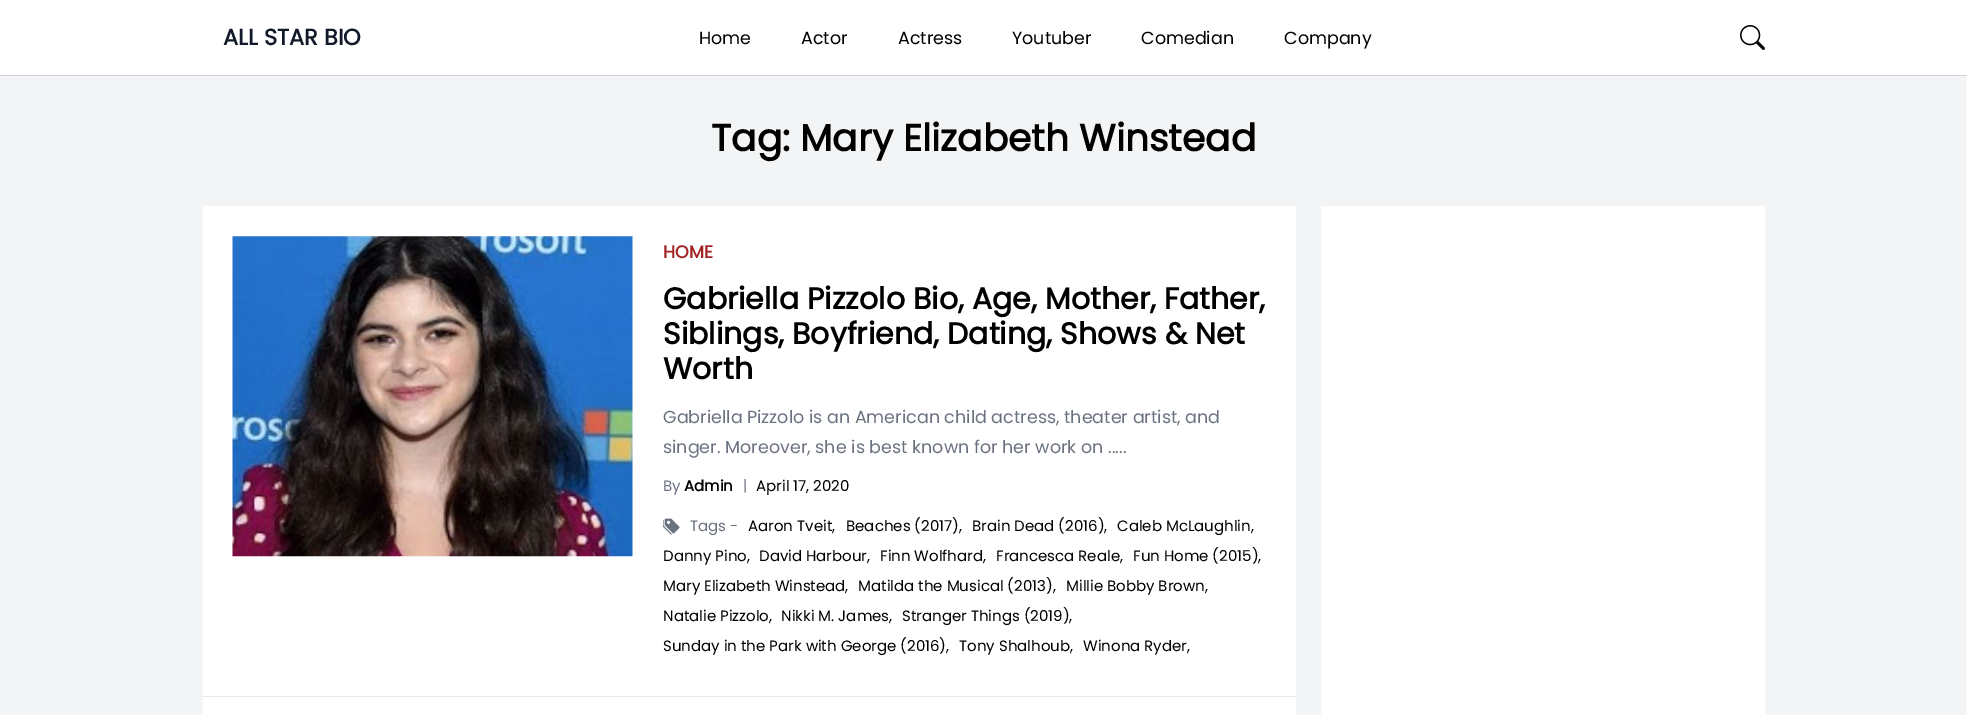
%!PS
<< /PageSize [1967 715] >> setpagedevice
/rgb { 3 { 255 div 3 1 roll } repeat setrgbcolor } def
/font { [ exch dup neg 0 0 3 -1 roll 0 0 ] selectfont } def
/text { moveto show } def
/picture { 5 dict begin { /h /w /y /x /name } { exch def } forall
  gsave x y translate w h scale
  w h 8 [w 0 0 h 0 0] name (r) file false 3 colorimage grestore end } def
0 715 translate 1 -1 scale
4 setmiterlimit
255 255 255 rgb
0 0 1967 715 rectfill
209 213 219 rgb
0 75 1967 1 rectfill
(img_01.rgb) 1740 25 25 25 picture
243 244 245 rgb
0 76 1967 639 rectfill
255 255 255 rgb
203 206 1093 509 rectfill
229 231 235 rgb
203 696 1093 1 rectfill
(img_02.rgb) 232 236 401 321 picture
(img_03.rgb) 663 518 17 17 picture
255 255 255 rgb
1321 206 444 509 rectfill
/Poppins-Bold 22.5 font
17 24 39 rgb
(ALL STAR BIO) 223 45 text
/Poppins-Regular 17.5 font
0 0 0 rgb
(Home) 699 44 text
(Actor) 801 44 text
(Actress) 898 44 text
(Youtuber) 1012 44 text
(Comedian) 1141 44 text
(Company) 1284 44 text
/Poppins-Bold 37.5 font
(Tag: Mary Elizabeth Winstead) 711 151 text
/Poppins-Bold 17.5 font
163 36 36 rgb
(HOME) 663 258 text
/Poppins-Bold 30 font
0 0 0 rgb
(Gabriella Pizzolo Bio, Age, Mother, Father,) 663 309 text
(Siblings, Boyfriend, Dating, Shows & Net) 663 344 text
(Worth) 663 379 text
/Poppins-Regular 17.5 font
107 114 128 rgb
(Gabriella Pizzolo is an American child actress, theater artist, and) 663 423 text
(singer. Moreover, she is best known for her work on .....) 663 453 text
/Poppins-Regular 15 font
(By) 663 491 text
/Poppins-Bold 15 font
0 0 0 rgb
(Admin) 684 491 text
/Poppins-Regular 15 font
107 114 128 rgb
(|) 743 491 text
0 0 0 rgb
(April 17, 2020) 756 491 text
107 114 128 rgb
(Tags -) 690 531 text
0 0 0 rgb
(Aaron Tveit,) 748 531 text
(Beaches \(2017\),) 846 531 text
(Brain Dead \(2016\),) 972 531 text
(Caleb McLaughlin,) 1117 531 text
(Danny Pino,) 663 561 text
(David Harbour,) 759 561 text
(Finn Wolfhard,) 880 561 text
(Francesca Reale,) 996 561 text
(Fun Home \(2015\),) 1133 561 text
(Mary Elizabeth Winstead,) 663 591 text
(Matilda the Musical \(2013\),) 858 591 text
(Millie Bobby Brown,) 1066 591 text
(Natalie Pizzolo,) 663 621 text
(Nikki M. James,) 781 621 text
(Stranger Things \(2019\),) 902 621 text
(Sunday in the Park with George \(2016\),) 663 651 text
(Tony Shalhoub,) 959 651 text
(Winona Ryder,) 1083 651 text
showpage
